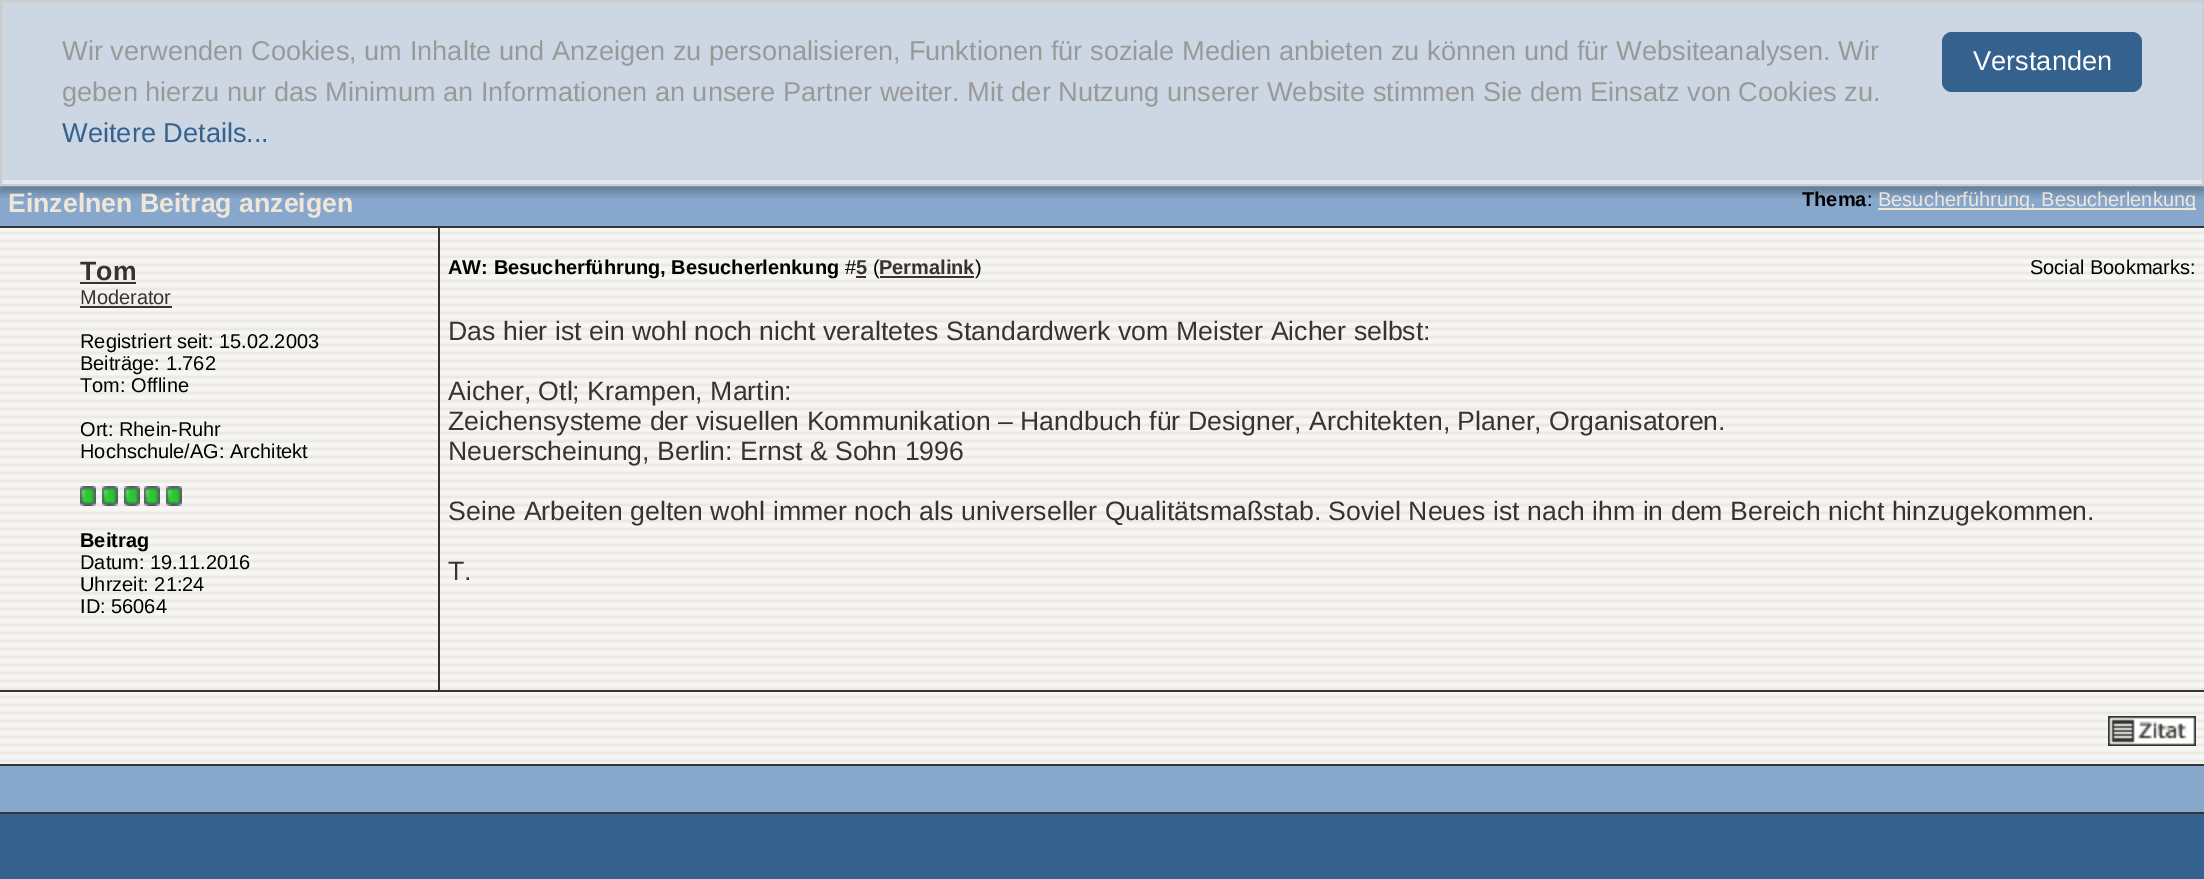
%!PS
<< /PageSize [2204 879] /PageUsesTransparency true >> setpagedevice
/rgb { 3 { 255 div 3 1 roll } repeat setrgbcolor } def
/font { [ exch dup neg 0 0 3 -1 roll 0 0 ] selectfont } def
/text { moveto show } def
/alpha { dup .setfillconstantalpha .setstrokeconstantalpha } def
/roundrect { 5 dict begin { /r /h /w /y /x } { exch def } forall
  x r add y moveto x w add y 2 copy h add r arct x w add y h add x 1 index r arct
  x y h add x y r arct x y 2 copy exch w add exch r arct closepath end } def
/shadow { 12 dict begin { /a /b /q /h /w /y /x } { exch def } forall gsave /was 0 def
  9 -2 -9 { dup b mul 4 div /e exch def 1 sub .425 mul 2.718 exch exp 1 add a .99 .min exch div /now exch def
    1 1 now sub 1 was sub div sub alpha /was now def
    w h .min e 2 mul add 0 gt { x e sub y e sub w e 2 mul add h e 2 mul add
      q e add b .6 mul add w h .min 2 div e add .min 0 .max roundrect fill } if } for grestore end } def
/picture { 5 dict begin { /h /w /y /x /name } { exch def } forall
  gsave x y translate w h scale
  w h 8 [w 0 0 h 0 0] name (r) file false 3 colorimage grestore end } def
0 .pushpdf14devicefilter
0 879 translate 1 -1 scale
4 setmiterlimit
53 97 142 rgb
0 0 2204 879 rectfill
135 168 204 rgb
0 180 2204 46 rectfill
gsave
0 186 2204 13 rectclip
0 0 0 rgb
0 6 2204 186 0 5 0.3 shadow
grestore
0.75 alpha
255 255 255 rgb
1 1 moveto 2202 0 rlineto 0 184 rlineto -2202 0 rlineto closepath fill
1 alpha
204 204 204 rgb
2 setlinewidth
1 1 moveto 2202 0 rlineto 0 184 rlineto -2202 0 rlineto closepath stroke
53 97 142 rgb
1942 32 200 60 10 roundrect fill
53 52 47 rgb
0 226 2204 2 rectfill
239 230 216 rgb
1878 208 318 2 rectfill
(img_01.rgb) 0 228 2204 536 picture
53 52 47 rgb
438 228 2 464 rectfill
0 690 2204 2 rectfill
80 282 56 2 rectfill
80 306 92 2 rectfill
(img_02.rgb) 80 486 16 20 picture
(img_02.rgb) 102 486 16 20 picture
(img_02.rgb) 124 486 16 20 picture
(img_02.rgb) 144 486 16 20 picture
(img_02.rgb) 166 486 16 20 picture
856 276 10 2 rectfill
880 276 94 2 rectfill
0 764 2204 2 rectfill
(img_03.rgb) 2108 716 88 30 picture
135 168 204 rgb
0 766 2204 46 rectfill
53 52 47 rgb
0 812 2204 2 rectfill
/LiberationSans-Regular 27.2 font
153 153 153 rgb
(Wir verwenden Cookies, um Inhalte und Anzeigen zu personalisieren, Funktionen für soziale Medien anbieten zu können und für Websiteanalysen. Wir) 62 60 text
(geben hierzu nur das Minimum an Informationen an unsere Partner weiter. Mit der Nutzung unserer Website stimmen Sie dem Einsatz von Cookies zu.) 62 101 text
53 97 142 rgb
(Weitere Details...) 62 142 text
255 255 255 rgb
(Verstanden) 1973 70 text
/LiberationSans-Bold 26.67 font
239 230 216 rgb
(Einzelnen Beitrag anzeigen) 8 212 text
/LiberationSans-Bold 20 font
0 0 0 rgb
(Thema) 1802 206 text
/LiberationSans-Regular 20 font
(:) 1867 206 text
239 230 216 rgb
(Besucherführung, Besucherlenkung) 1878 206 text
/LiberationSans-Bold 26.67 font
53 52 47 rgb
(Tom) 80 280 text
/LiberationSans-Regular 20 font
(Moderator) 80 304 text
0 0 0 rgb
(Registriert seit: 15.02.2003) 80 348 text
(Beiträge: 1.762) 80 370 text
(Tom: Offline) 80 392 text
(Ort: Rhein-Ruhr) 80 436 text
(Hochschule/AG: Architekt) 80 458 text
/LiberationSans-Bold 20 font
(Beitrag) 80 547 text
/LiberationSans-Regular 20 font
(Datum: 19.11.2016) 80 569 text
(Uhrzeit: 21:24) 80 591 text
(ID: 56064) 80 613 text
/LiberationSans-Bold 20 font
(AW: Besucherführung, Besucherlenkung) 448 274 text
/LiberationSans-Regular 20 font
(#) 845 274 text
/LiberationSans-Bold 20 font
53 52 47 rgb
(5) 856 274 text
/LiberationSans-Regular 20 font
0 0 0 rgb
(\() 873 274 text
/LiberationSans-Bold 20 font
53 52 47 rgb
(Permalink) 879 274 text
/LiberationSans-Regular 20 font
0 0 0 rgb
(\)) 975 274 text
(Social Bookmarks:) 2030 274 text
/LiberationSans-Regular 26.67 font
53 52 47 rgb
(Das hier ist ein wohl noch nicht veraltetes Standardwerk vom Meister Aicher selbst:) 448 340 text
(Aicher, Otl; Krampen, Martin:) 448 400 text
(Zeichensysteme der visuellen Kommunikation – Handbuch für Designer, Architekten, Planer, Organisatoren.) 448 430 text
(Neuerscheinung, Berlin: Ernst & Sohn 1996) 448 460 text
(Seine Arbeiten gelten wohl immer noch als universeller Qualitätsmaßstab. Soviel Neues ist nach ihm in dem Bereich nicht hinzugekommen.) 448 520 text
(T.) 448 580 text
.poppdf14devicefilter showpage
